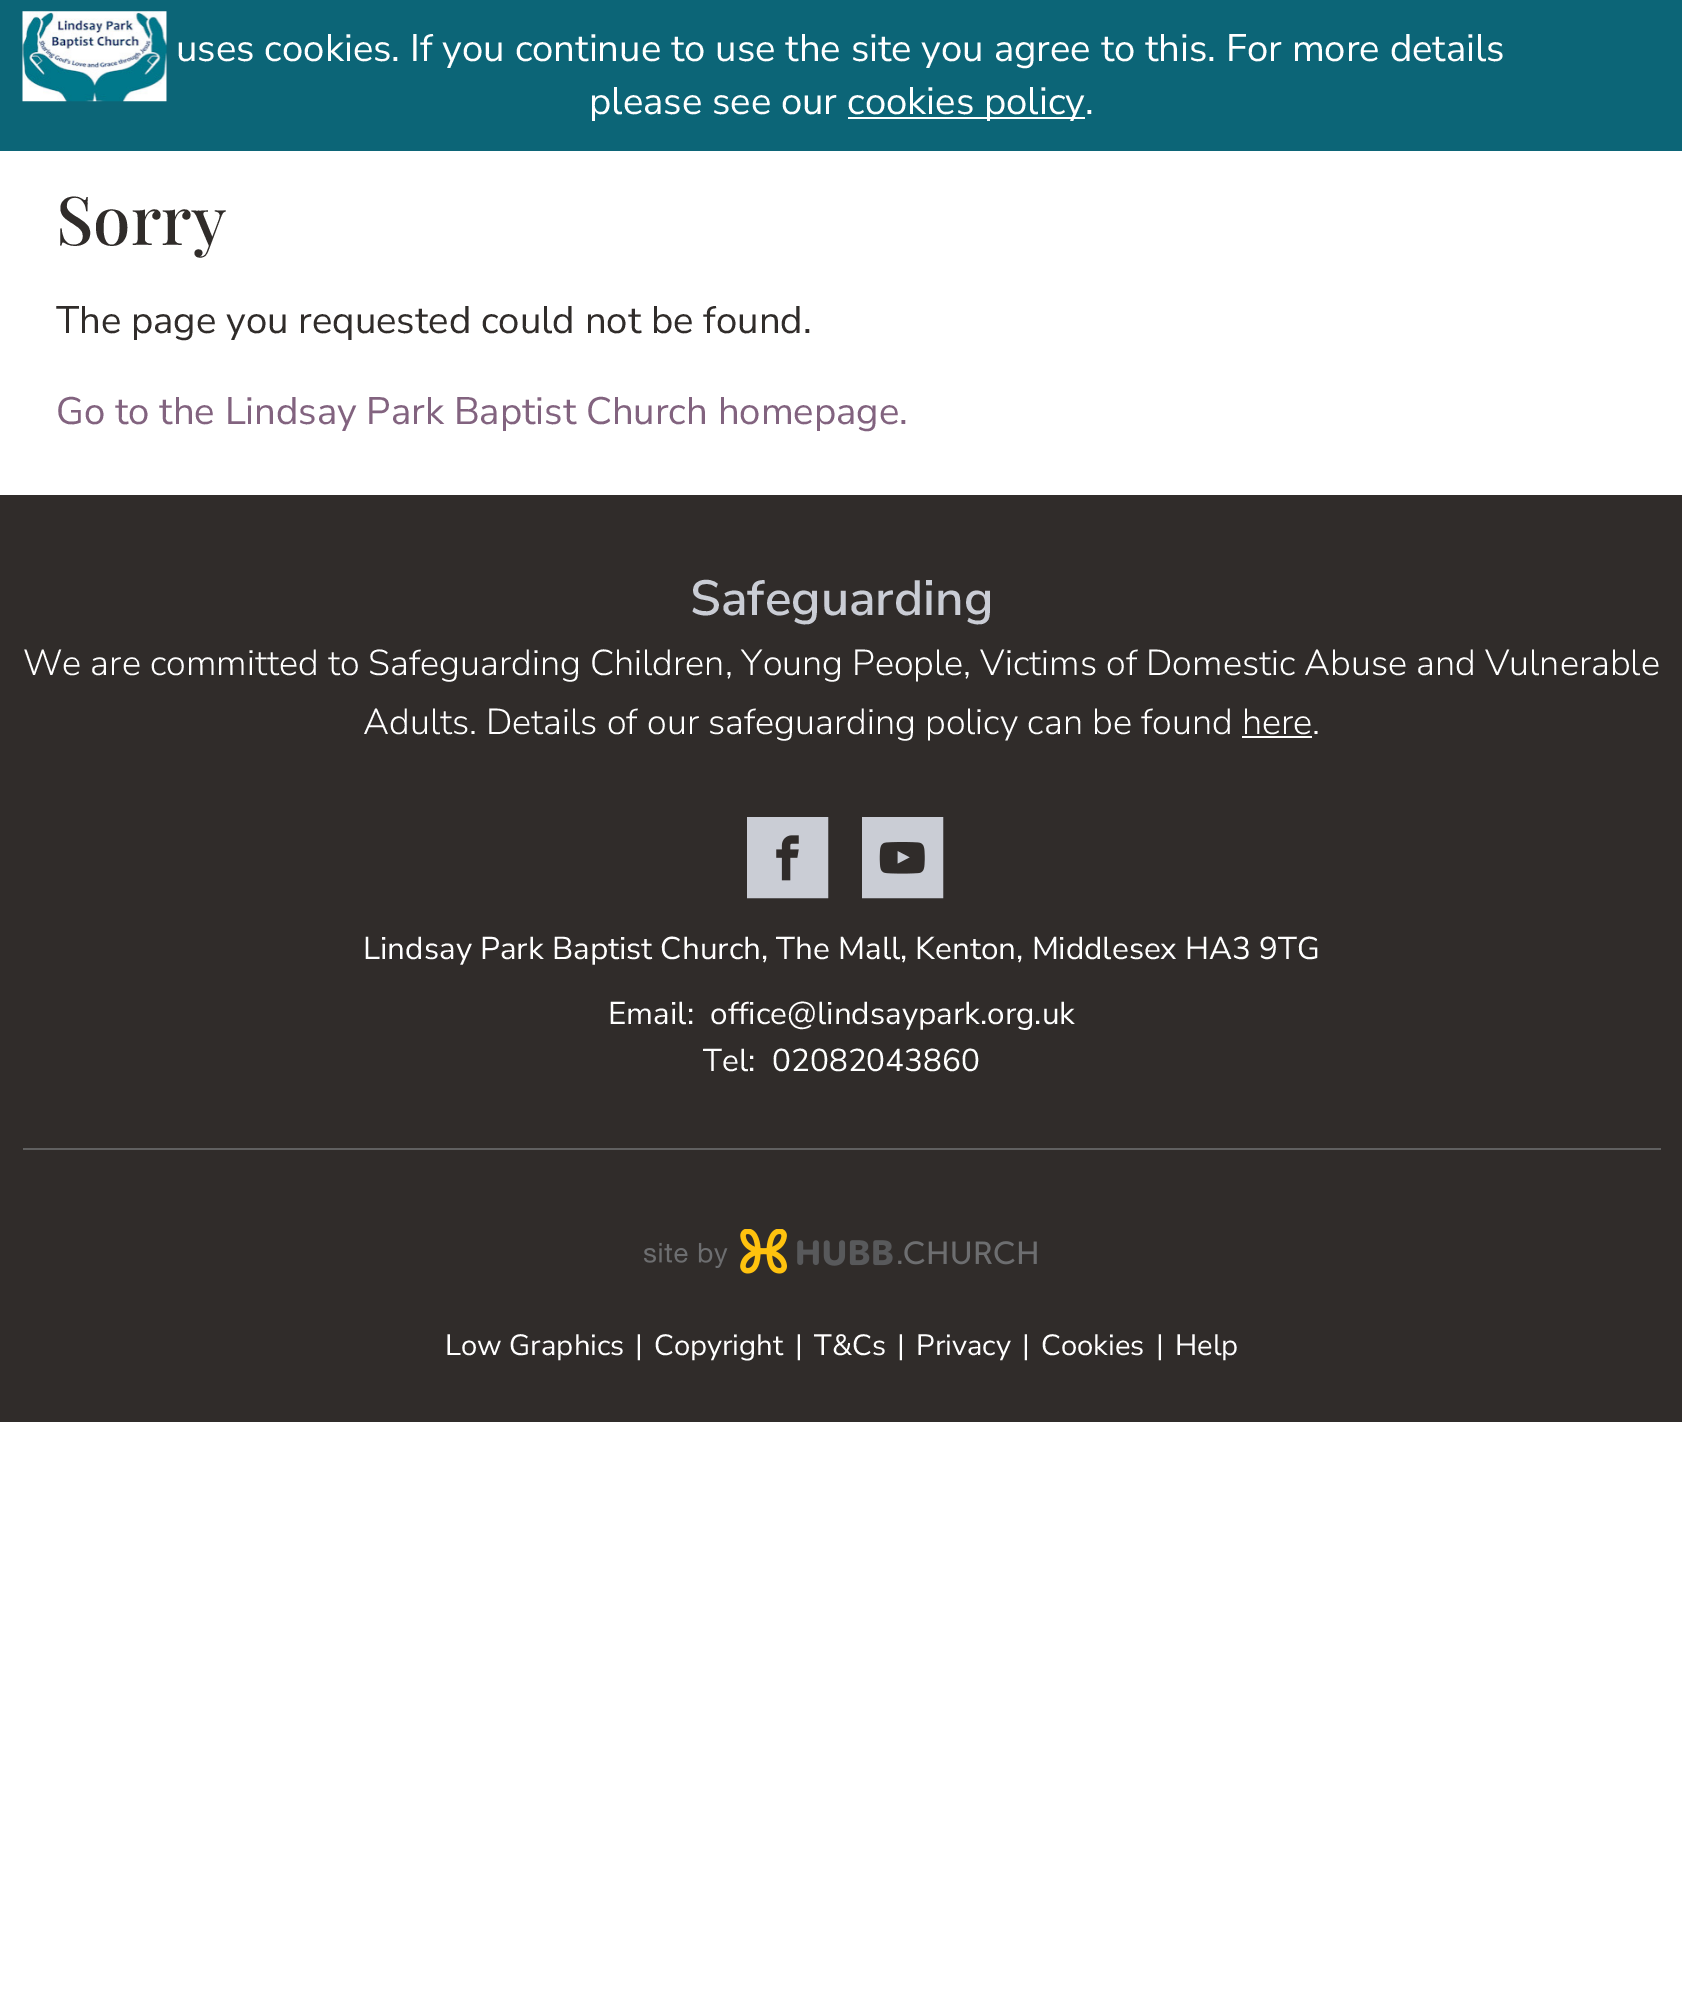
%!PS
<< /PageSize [1682 1989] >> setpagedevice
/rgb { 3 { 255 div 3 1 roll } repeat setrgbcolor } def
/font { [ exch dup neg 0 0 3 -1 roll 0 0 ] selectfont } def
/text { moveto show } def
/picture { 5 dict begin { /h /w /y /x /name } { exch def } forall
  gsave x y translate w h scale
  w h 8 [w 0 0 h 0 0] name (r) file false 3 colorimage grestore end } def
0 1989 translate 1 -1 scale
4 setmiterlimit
255 255 255 rgb
0 0 1682 1989 rectfill
12 101 119 rgb
0 0 1682 151 rectfill
(img_01.rgb) 22 11 145 91 picture
255 255 255 rgb
848 117 237 2 rectfill
48 44 42 rgb
0 495 1682 927 rectfill
255 255 255 rgb
1242 736 70 2 rectfill
202 205 213 rgb
756 826 moveto 63 0 rlineto 0 63 rlineto -63 0 rlineto closepath gsave fill grestore
18 setlinewidth
stroke
(img_02.rgb) 776 835 23 46 picture
871 826 moveto 63 0 rlineto 0 63 rlineto -63 0 rlineto closepath gsave fill grestore
stroke
(img_03.rgb) 879 842 46 32 picture
96 96 96 rgb
23 1148 1638 2 rectfill
(img_04.rgb) 644 1229 393 45 picture
/NunitoSans-Regular 38.25 font
255 255 255 rgb
(uses cookies. If you continue to use the site you agree to this. For more details) 176 61 text
(please see our) 589 114 text
(cookies policy.) 847 114 text
/PlayfairDisplay-Medium 67.5 font
48 44 42 rgb
(Sorry) 56 245 text
/NunitoSans-Regular 38.25 font
(The page you requested could not be found.) 56 333 text
130 99 127 rgb
(Go to the Lindsay Park Baptist Church homepage.) 56 424 text
/NunitoSans-SemiBold 49.5 font
202 205 213 rgb
(Safeguarding) 690 615 text
/NunitoSans-Light 36 font
255 255 255 rgb
(We are committed to Safeguarding Children, Young People, Victims of Domestic Abuse and Vulnerable) 23 675 text
(Adults. Details of our safeguarding policy can be found here.) 363 734 text
/NunitoSans-Regular 31.5 font
(Lindsay Park Baptist Church, The Mall, Kenton, Middlesex HA3 9TG) 363 959 text
(Email:) 608 1024 text
(office@lindsaypark.org.uk) 710 1024 text
(Tel:) 703 1071 text
(02082043860) 772 1071 text
/NunitoSans-Regular 29.25 font
(Low Graphics) 445 1355 text
(|) 635 1355 text
(Copyright) 654 1355 text
(|) 795 1355 text
(T&Cs) 814 1355 text
(|) 897 1355 text
(Privacy) 916 1355 text
(|) 1022 1355 text
(Cookies) 1041 1355 text
(|) 1156 1355 text
(Help) 1175 1355 text
showpage
